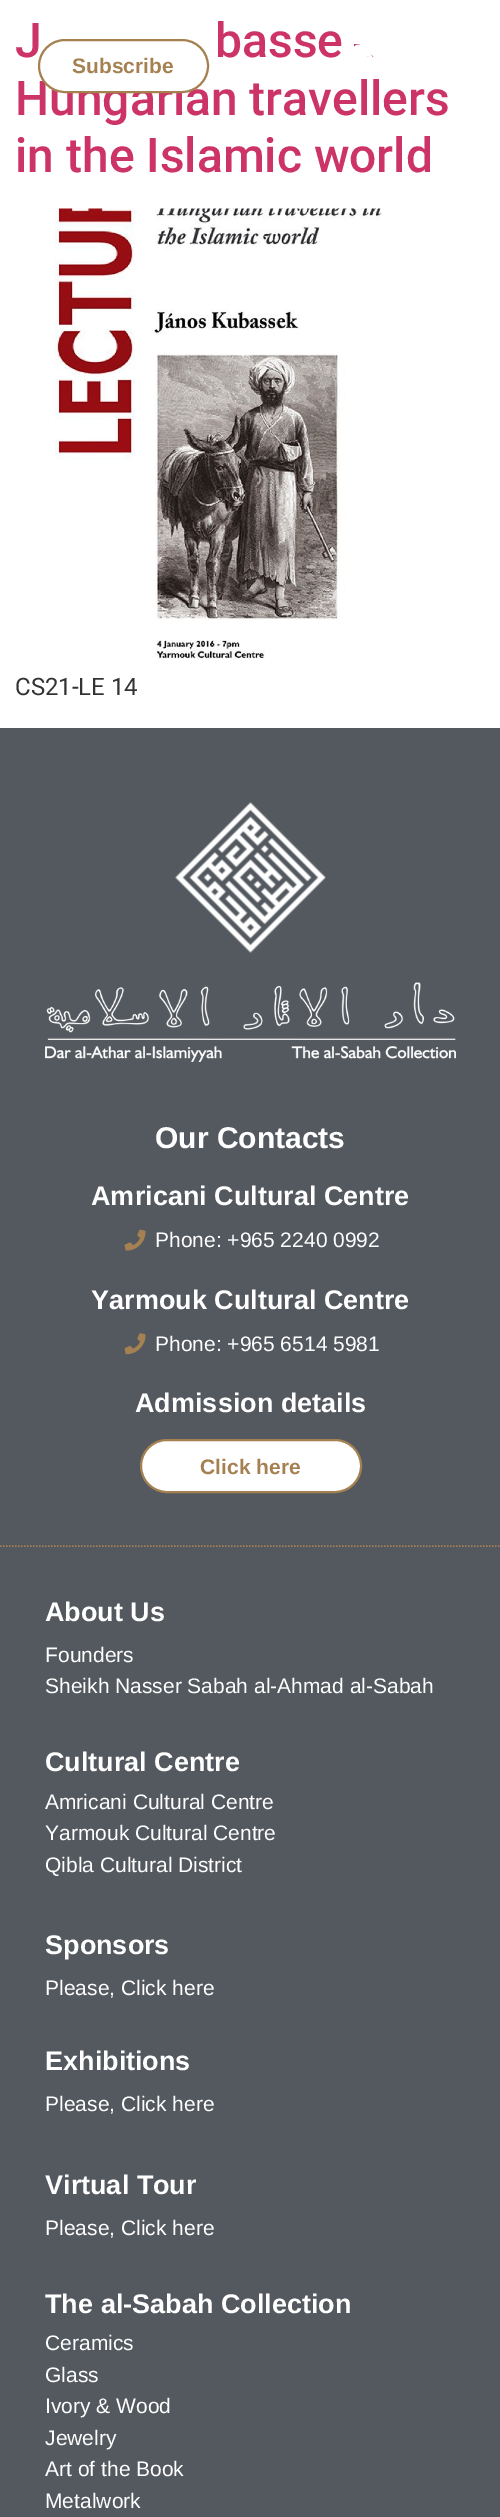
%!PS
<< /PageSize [500 2517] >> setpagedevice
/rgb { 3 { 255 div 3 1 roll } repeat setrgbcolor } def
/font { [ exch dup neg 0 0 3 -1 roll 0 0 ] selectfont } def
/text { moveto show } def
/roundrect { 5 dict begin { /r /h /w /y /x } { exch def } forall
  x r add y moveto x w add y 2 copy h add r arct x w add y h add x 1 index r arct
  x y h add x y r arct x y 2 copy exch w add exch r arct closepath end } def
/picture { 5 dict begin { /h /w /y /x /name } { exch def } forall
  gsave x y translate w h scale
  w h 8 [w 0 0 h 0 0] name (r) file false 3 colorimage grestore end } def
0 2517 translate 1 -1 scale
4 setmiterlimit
255 255 255 rgb
0 0 500 2517 rectfill
(img_01.rgb) 55 208 327 451 picture
(img_02.rgb) 354 44 24 14 picture
84 89 95 rgb
0 728 500 1789 rectfill
165 129 82 rgb
1.5 setlinewidth
[1.5 1.5] 0 setdash
0 1546 moveto 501 0 rlineto stroke
(img_03.rgb) 175 802 151 151 picture
(img_04.rgb) 45 982 411 80 picture
(img_05.rgb) 124 1229 22 22 picture
(img_06.rgb) 124 1333 22 22 picture
255 255 255 rgb
141 1440 220 52 26 roundrect gsave fill grestore
165 129 82 rgb
2 setlinewidth
[] 0 setdash
stroke
/Roboto-Medium 48 font
204 51 102 rgb
(J) 15 57 text
(basse) 215 57 text
(Hungarian travellers) 15 115 text
(in the Islamic world) 15 172 text
/Roboto-Regular 24 font
51 51 51 rgb
(CS21-LE 14) 15 695 text
255 255 255 rgb
39 40 169 52 26 roundrect gsave fill grestore
165 129 82 rgb
stroke
/LiberationSans-Bold 21 font
(Subscribe) 72 73 text
/LiberationSans-Bold 30 font
255 255 255 rgb
(Our Contacts) 155 1148 text
/LiberationSans-Bold 27 font
(Amricani Cultural Centre) 91 1205 text
/LiberationSans-Regular 21 font
(Phone: +965 2240 0992) 155 1247 text
/LiberationSans-Bold 27 font
(Yarmouk Cultural Centre) 91 1309 text
/LiberationSans-Regular 21 font
(Phone: +965 6514 5981) 155 1351 text
/LiberationSans-Bold 27 font
(Admission details) 135 1412 text
/LiberationSans-Bold 21 font
165 129 82 rgb
(Click here) 200 1474 text
/LiberationSans-Bold 27 font
255 255 255 rgb
(About Us) 45 1621 text
/LiberationSans-Regular 21 font
(Founders) 45 1662 text
(Sheikh Nasser Sabah al-Ahmad al-Sabah) 45 1693 text
/LiberationSans-Bold 27 font
(Cultural Centre) 45 1771 text
/LiberationSans-Regular 21 font
(Amricani Cultural Centre) 45 1809 text
(Yarmouk Cultural Centre) 45 1840 text
(Qibla Cultural District) 45 1872 text
/LiberationSans-Bold 27 font
(Sponsors) 45 1954 text
/LiberationSans-Regular 21 font
(Please, Click here) 45 1995 text
/LiberationSans-Bold 27 font
(Exhibitions) 45 2070 text
/LiberationSans-Regular 21 font
(Please, Click here) 45 2111 text
/LiberationSans-Bold 27 font
(Virtual Tour) 45 2194 text
/LiberationSans-Regular 21 font
(Please, Click here) 45 2235 text
/LiberationSans-Bold 27 font
(The al-Sabah Collection) 45 2313 text
/LiberationSans-Regular 21 font
(Ceramics) 45 2350 text
(Glass) 45 2382 text
(Ivory & Wood) 45 2413 text
(Jewelry) 45 2445 text
(Art of the Book) 45 2476 text
(Metalwork) 45 2508 text
showpage
